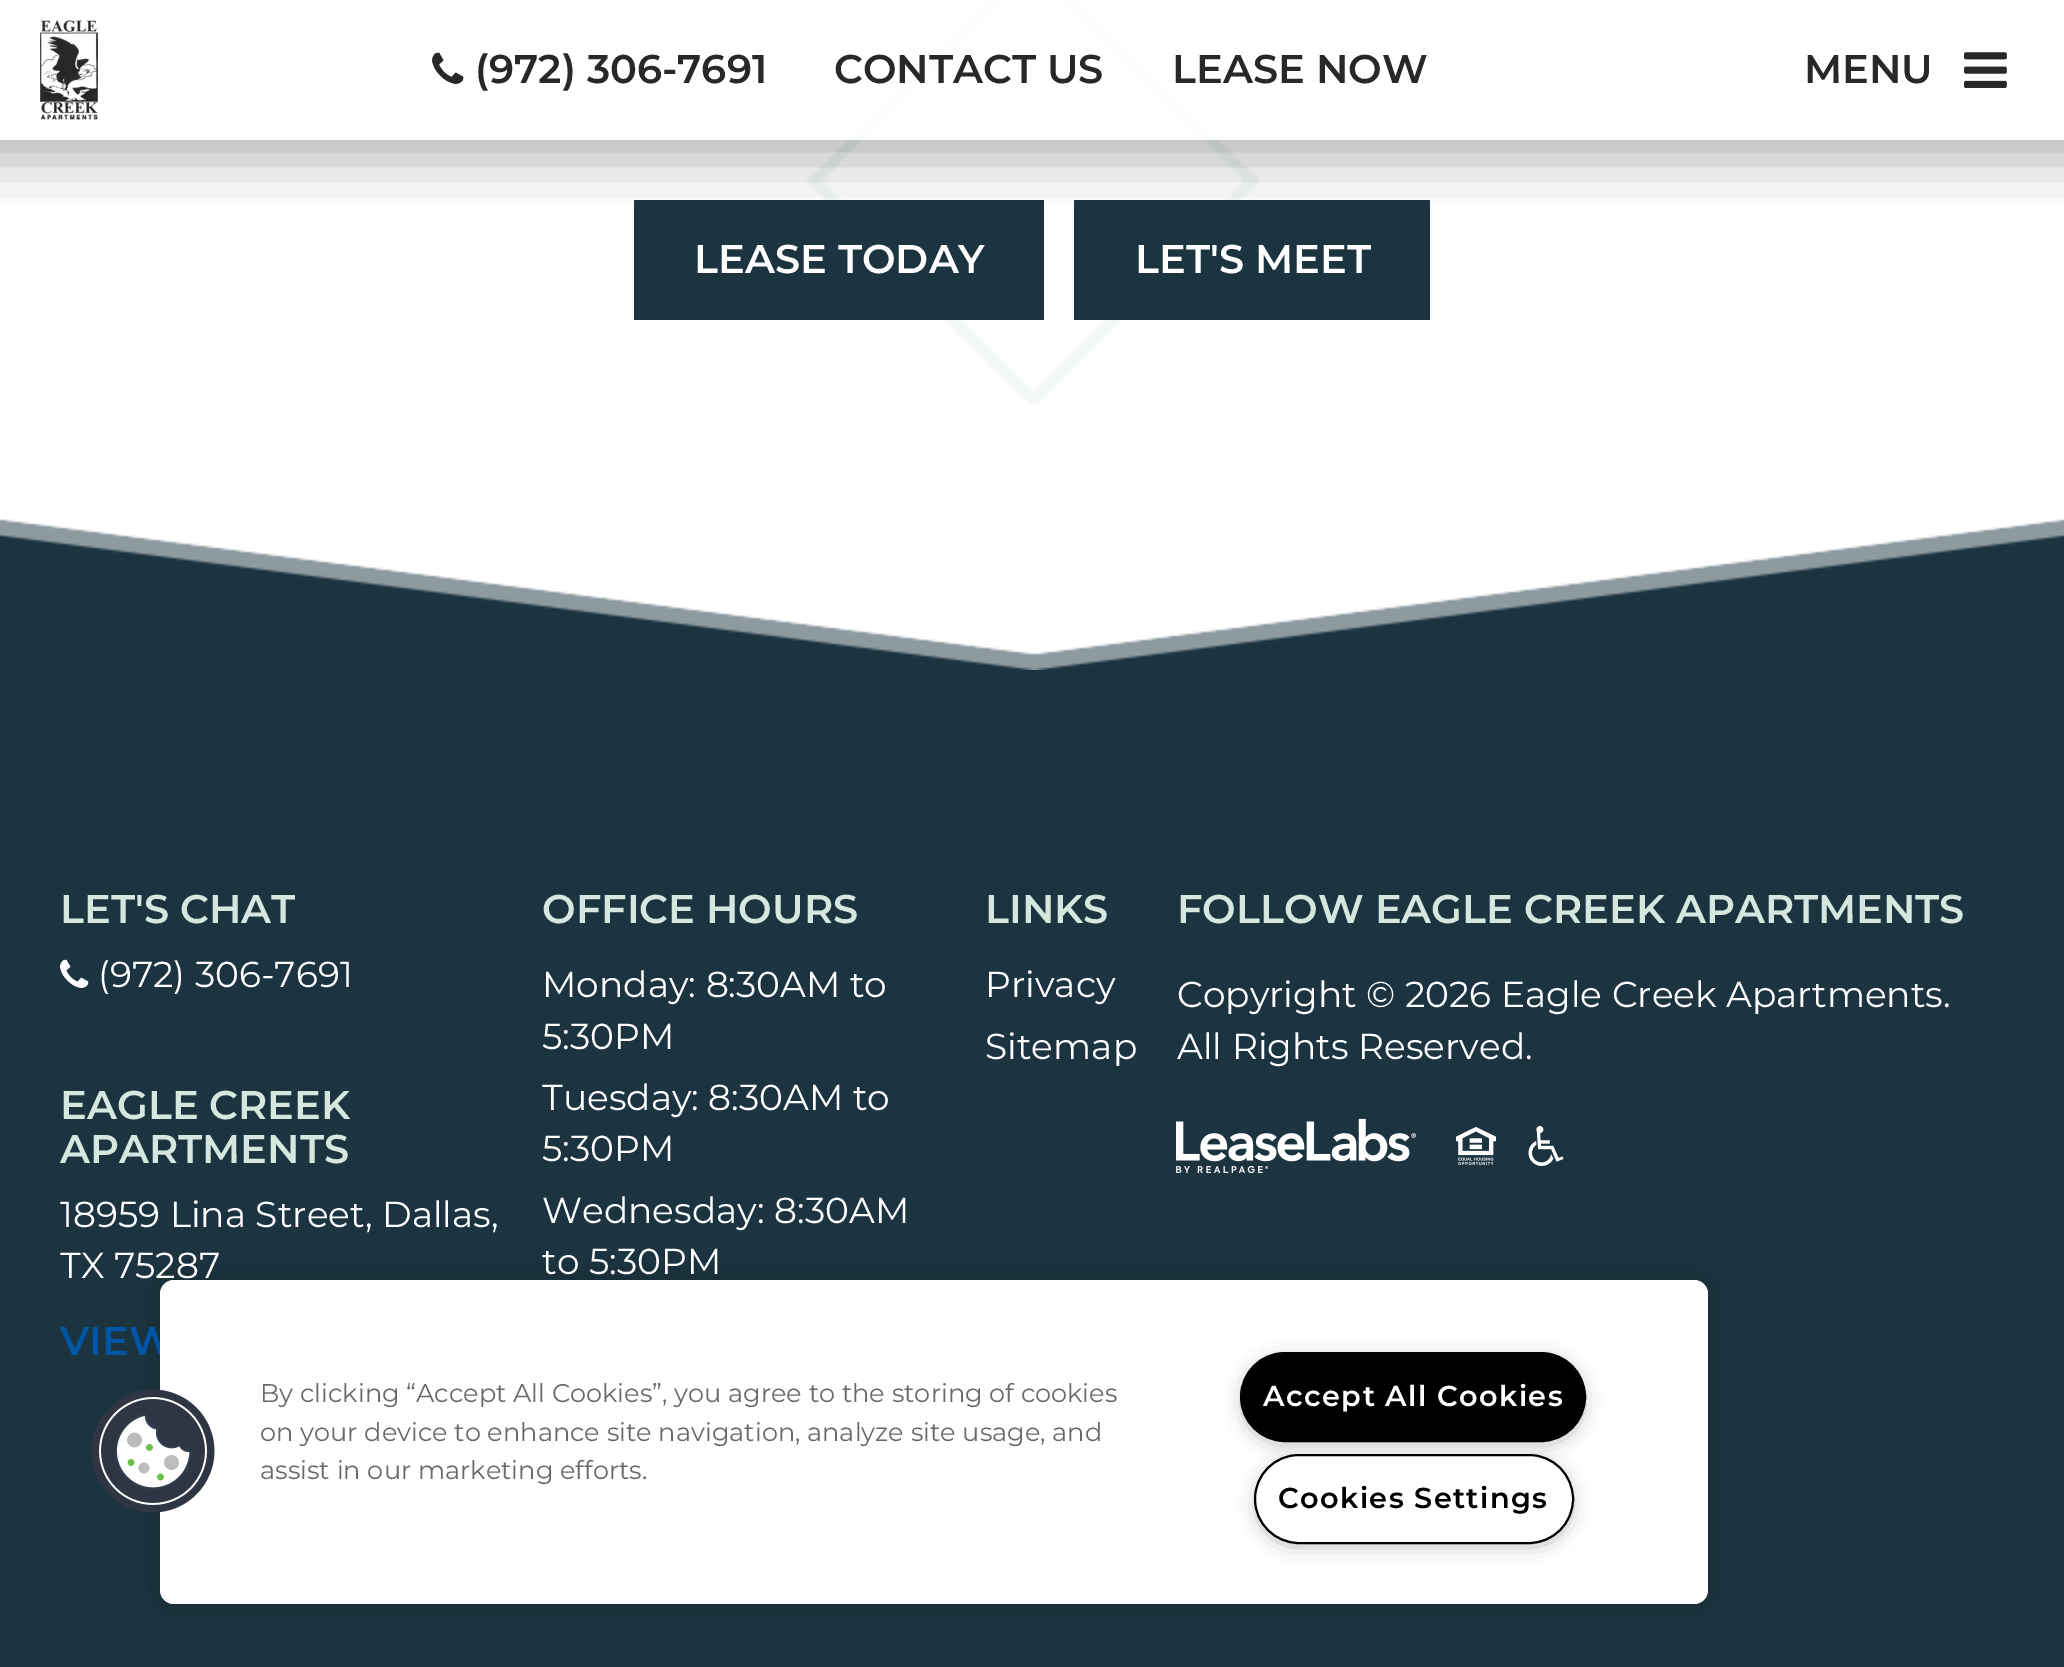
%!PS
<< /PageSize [2064 1667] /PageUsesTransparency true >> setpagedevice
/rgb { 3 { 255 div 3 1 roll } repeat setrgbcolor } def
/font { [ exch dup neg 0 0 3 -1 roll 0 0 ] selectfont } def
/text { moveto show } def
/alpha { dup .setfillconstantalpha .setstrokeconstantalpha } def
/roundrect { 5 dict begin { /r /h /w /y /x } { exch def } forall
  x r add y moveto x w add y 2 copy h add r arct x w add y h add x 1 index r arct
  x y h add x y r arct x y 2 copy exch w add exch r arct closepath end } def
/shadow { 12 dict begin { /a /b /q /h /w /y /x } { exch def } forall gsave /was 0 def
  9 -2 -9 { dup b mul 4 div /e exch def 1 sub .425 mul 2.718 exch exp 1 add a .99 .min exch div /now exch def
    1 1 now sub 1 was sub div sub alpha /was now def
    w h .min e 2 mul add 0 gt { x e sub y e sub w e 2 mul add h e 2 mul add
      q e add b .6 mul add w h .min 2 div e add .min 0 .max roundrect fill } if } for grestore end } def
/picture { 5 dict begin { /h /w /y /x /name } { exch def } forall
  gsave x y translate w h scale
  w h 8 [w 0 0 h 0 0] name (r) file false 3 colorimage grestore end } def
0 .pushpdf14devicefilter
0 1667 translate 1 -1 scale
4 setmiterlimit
255 255 255 rgb
0 0 2064 1667 rectfill
(img_04.rgb) 806 0 454 404 picture
0.8 alpha
846 0 374 140 rectfill
1 alpha
27 52 64 rgb
634 200 410 120 rectfill
1074 200 356 120 rectfill
gsave
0 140 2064 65 rectclip
0 0 0 rgb
-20 -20 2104 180 0 30 0.3 shadow
grestore
(img_01.rgb) 40 20 58 100 picture
(img_02.rgb) 432 52 32 32 picture
(img_03.rgb) 1964 52 43 36 picture
0 517 2064 1150 rectfill
(img_05.rgb) 0 404 2064 266 picture
(img_06.rgb) 60 959 29 29 picture
(img_07.rgb) 1176 1118 240 56 picture
(img_08.rgb) 1456 1126 40 40 picture
(img_09.rgb) 1528 1126 36 40 picture
0 0 0 rgb
160 1280 1548 324 14 18 0.2 shadow
/Montserrat-SemiBold 40 font
40 40 40 rgb
(\(972\) 306-7691) 475 83 text
(CONTACT US) 834 83 text
(LEASE NOW) 1172 83 text
(MENU) 1804 83 text
255 255 255 rgb
(LEASE TODAY) 694 273 text
(LET'S MEET) 1135 273 text
212 232 223 rgb
(LET'S CHAT) 60 923 text
/Montserrat-Regular 36 font
255 255 255 rgb
(\(972\) 306-7691) 98 987 text
/Montserrat-SemiBold 40 font
212 232 223 rgb
(EAGLE CREEK) 60 1119 text
(APARTMENTS) 60 1163 text
/Montserrat-Regular 36 font
255 255 255 rgb
(18959 Lina Street, Dallas,) 60 1227 text
(TX 75287) 60 1278 text
/Montserrat-SemiBold 40 font
0 85 164 rgb
(VIEW) 60 1355 text
212 232 223 rgb
(OFFICE HOURS) 542 923 text
/Montserrat-Regular 36 font
255 255 255 rgb
(Monday: 8:30AM to) 542 997 text
(5:30PM) 542 1049 text
(Tuesday: 8:30AM to) 542 1110 text
(5:30PM) 542 1161 text
(Wednesday: 8:30AM) 542 1223 text
(to 5:30PM) 542 1274 text
/Montserrat-SemiBold 40 font
212 232 223 rgb
(LINKS) 985 923 text
/Montserrat-Regular 36 font
255 255 255 rgb
(Privacy) 985 997 text
(Sitemap) 985 1059 text
/Montserrat-SemiBold 40 font
212 232 223 rgb
(FOLLOW EAGLE CREEK APARTMENTS) 1177 923 text
/Montserrat-Regular 36 font
255 255 255 rgb
(Copyright © 2026 Eagle Creek Apartments.) 1177 1007 text
(All Rights Reserved.) 1177 1059 text
160 1280 1548 324 14 roundrect fill
(img_10.rgb) 91 1389 124 124 picture
/Montserrat-Regular 25.6 font
105 105 105 rgb
(By clicking “Accept All Cookies”, you agree to the storing of cookies) 260 1402 text
(on your device to enhance site navigation, analyze site usage, and) 260 1441 text
(assist in our marketing efforts.) 260 1479 text
153 153 153 rgb
1246 1362 334 78 39 10 1 shadow
0 0 0 rgb
1241 1353 344 88 44 roundrect gsave fill grestore
2 setlinewidth
stroke
/Montserrat-SemiBold 28.75 font
255 255 255 rgb
1263 1406 moveto 1.4 0 (Accept All Cookies) ashow
153 153 153 rgb
1260 1464 308 78 39 10 1 shadow
255 255 255 rgb
1255 1455 318 88 44 roundrect gsave fill grestore
0 0 0 rgb
stroke
1278 1508 moveto 1.4 0 (Cookies Settings) ashow
.poppdf14devicefilter showpage
